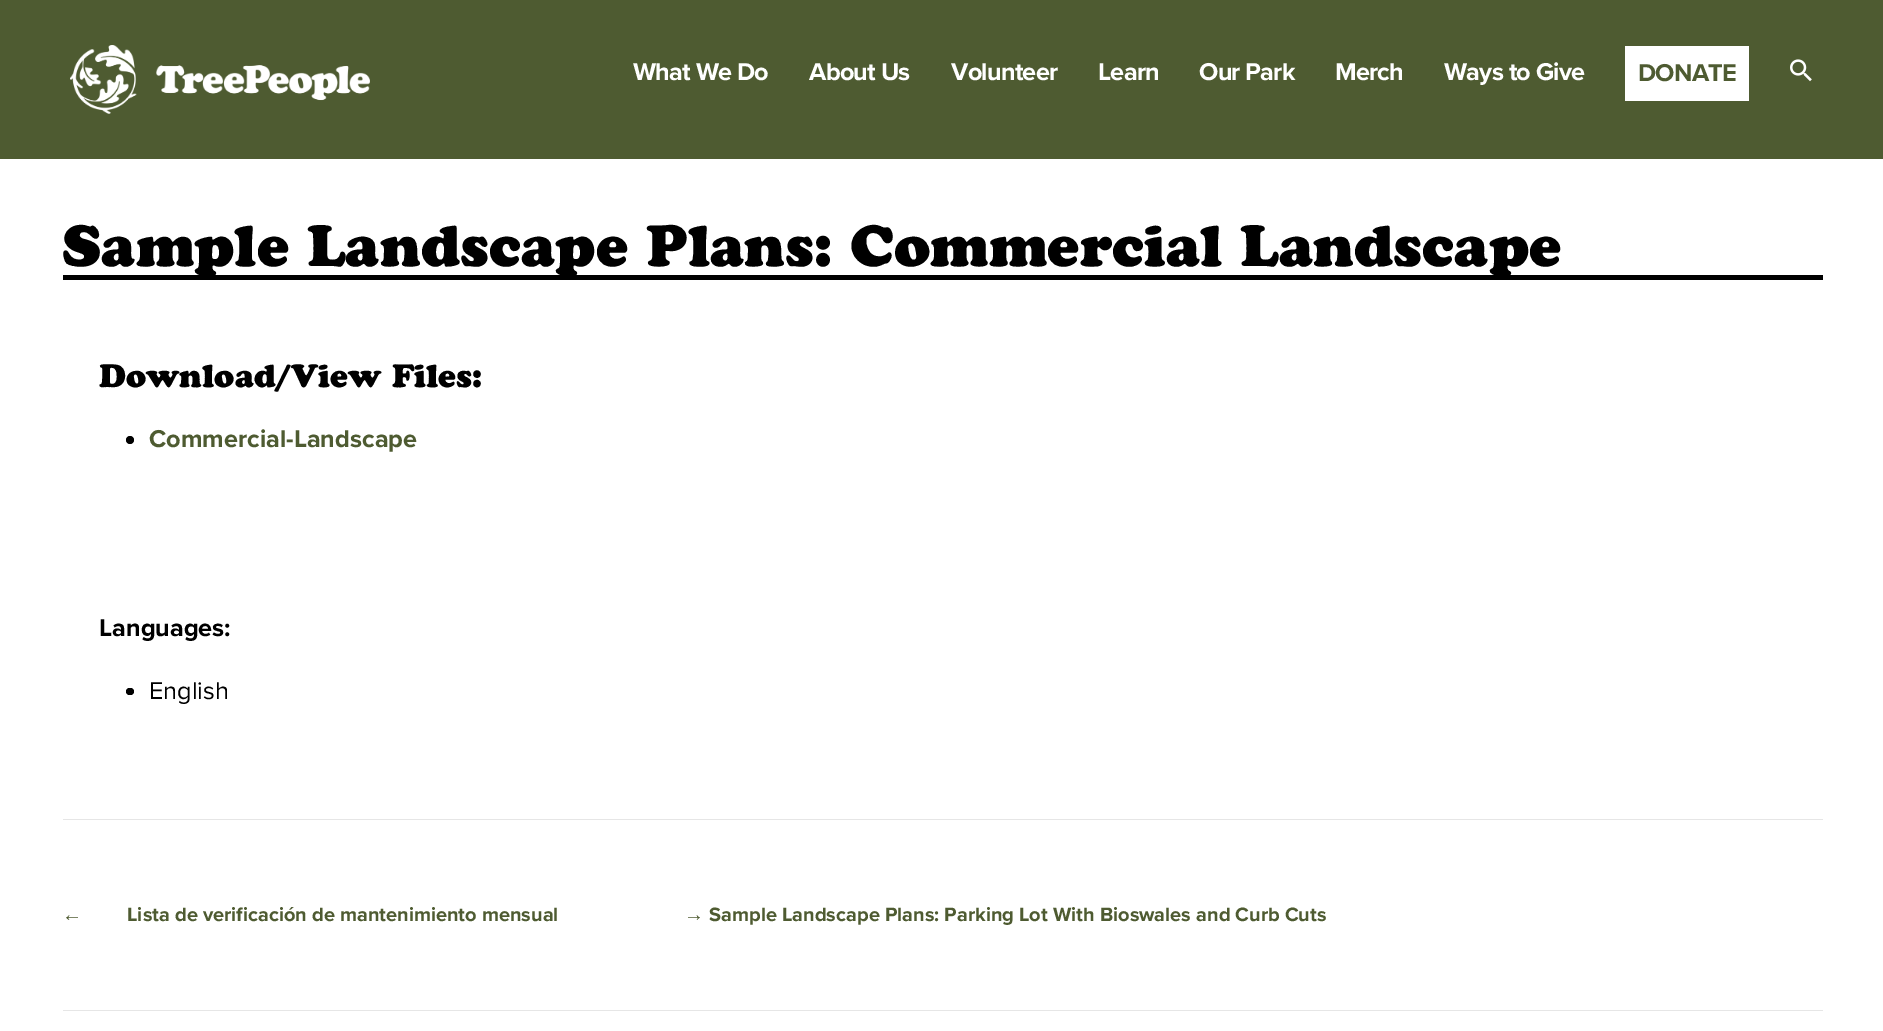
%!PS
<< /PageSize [1883 1031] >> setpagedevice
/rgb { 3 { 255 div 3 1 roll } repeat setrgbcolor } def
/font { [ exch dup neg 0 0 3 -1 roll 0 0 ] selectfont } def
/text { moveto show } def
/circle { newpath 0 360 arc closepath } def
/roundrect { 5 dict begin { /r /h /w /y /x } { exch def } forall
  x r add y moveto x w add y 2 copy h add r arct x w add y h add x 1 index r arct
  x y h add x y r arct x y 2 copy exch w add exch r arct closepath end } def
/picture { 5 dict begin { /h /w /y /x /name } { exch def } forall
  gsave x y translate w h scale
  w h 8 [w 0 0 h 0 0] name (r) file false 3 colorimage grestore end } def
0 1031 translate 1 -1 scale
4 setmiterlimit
255 255 255 rgb
0 0 1883 1031 rectfill
78 91 49 rgb
0 0 1883 159 rectfill
(img_01.rgb) 70 45 300 69 picture
255 255 255 rgb
1625 46 124 55 rectfill
(img_02.rgb) 1790 59 22 23 picture
0 0 0 rgb
63 275 1760 5 rectfill
130 440 4 circle fill
126 688 8 7 3.5 roundrect fill
230 230 230 rgb
63 819 1760 1 rectfill
63 1010 1760 1 rectfill
/ProximaNova-Bold 25.25 font
255 255 255 rgb
633 80 moveto -0.75 0 (What We Do) ashow
809 80 moveto -0.75 0 (About Us) ashow
951 80 moveto -0.75 0 (Volunteer) ashow
1098 80 moveto -0.75 0 (Learn) ashow
1199 80 moveto -0.75 0 (Our Park) ashow
1335 80 moveto -0.75 0 (Merch) ashow
1444 80 moveto -0.75 0 (Ways to Give) ashow
78 91 49 rgb
1638 81 moveto -0.75 0 (DONATE) ashow
/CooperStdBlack-Black 57.75 font
0 0 0 rgb
(Sample Landscape Plans: Commercial Landscape) 62 266 text
/CooperStdBlack-Black 32 font
(Download/View Files:) 99 387 text
/ProximaNova-Bold 25.25 font
78 91 49 rgb
(Commercial-Landscape) 149 447 text
0 0 0 rgb
(Languages:) 99 636 text
/ProximaNova-Regular 25.25 font
(English) 149 699 text
/LiberationSans-Bold 20 font
78 91 49 rgb
(←) 62 921 text
/ProximaNova-Bold 20 font
(Lista de verificación de mantenimiento mensual) 127 921 text
/LiberationSans-Bold 20 font
(→) 684 921 text
/ProximaNova-Bold 20 font
(Sample Landscape Plans: Parking Lot With Bioswales and Curb Cuts) 709 921 text
showpage
